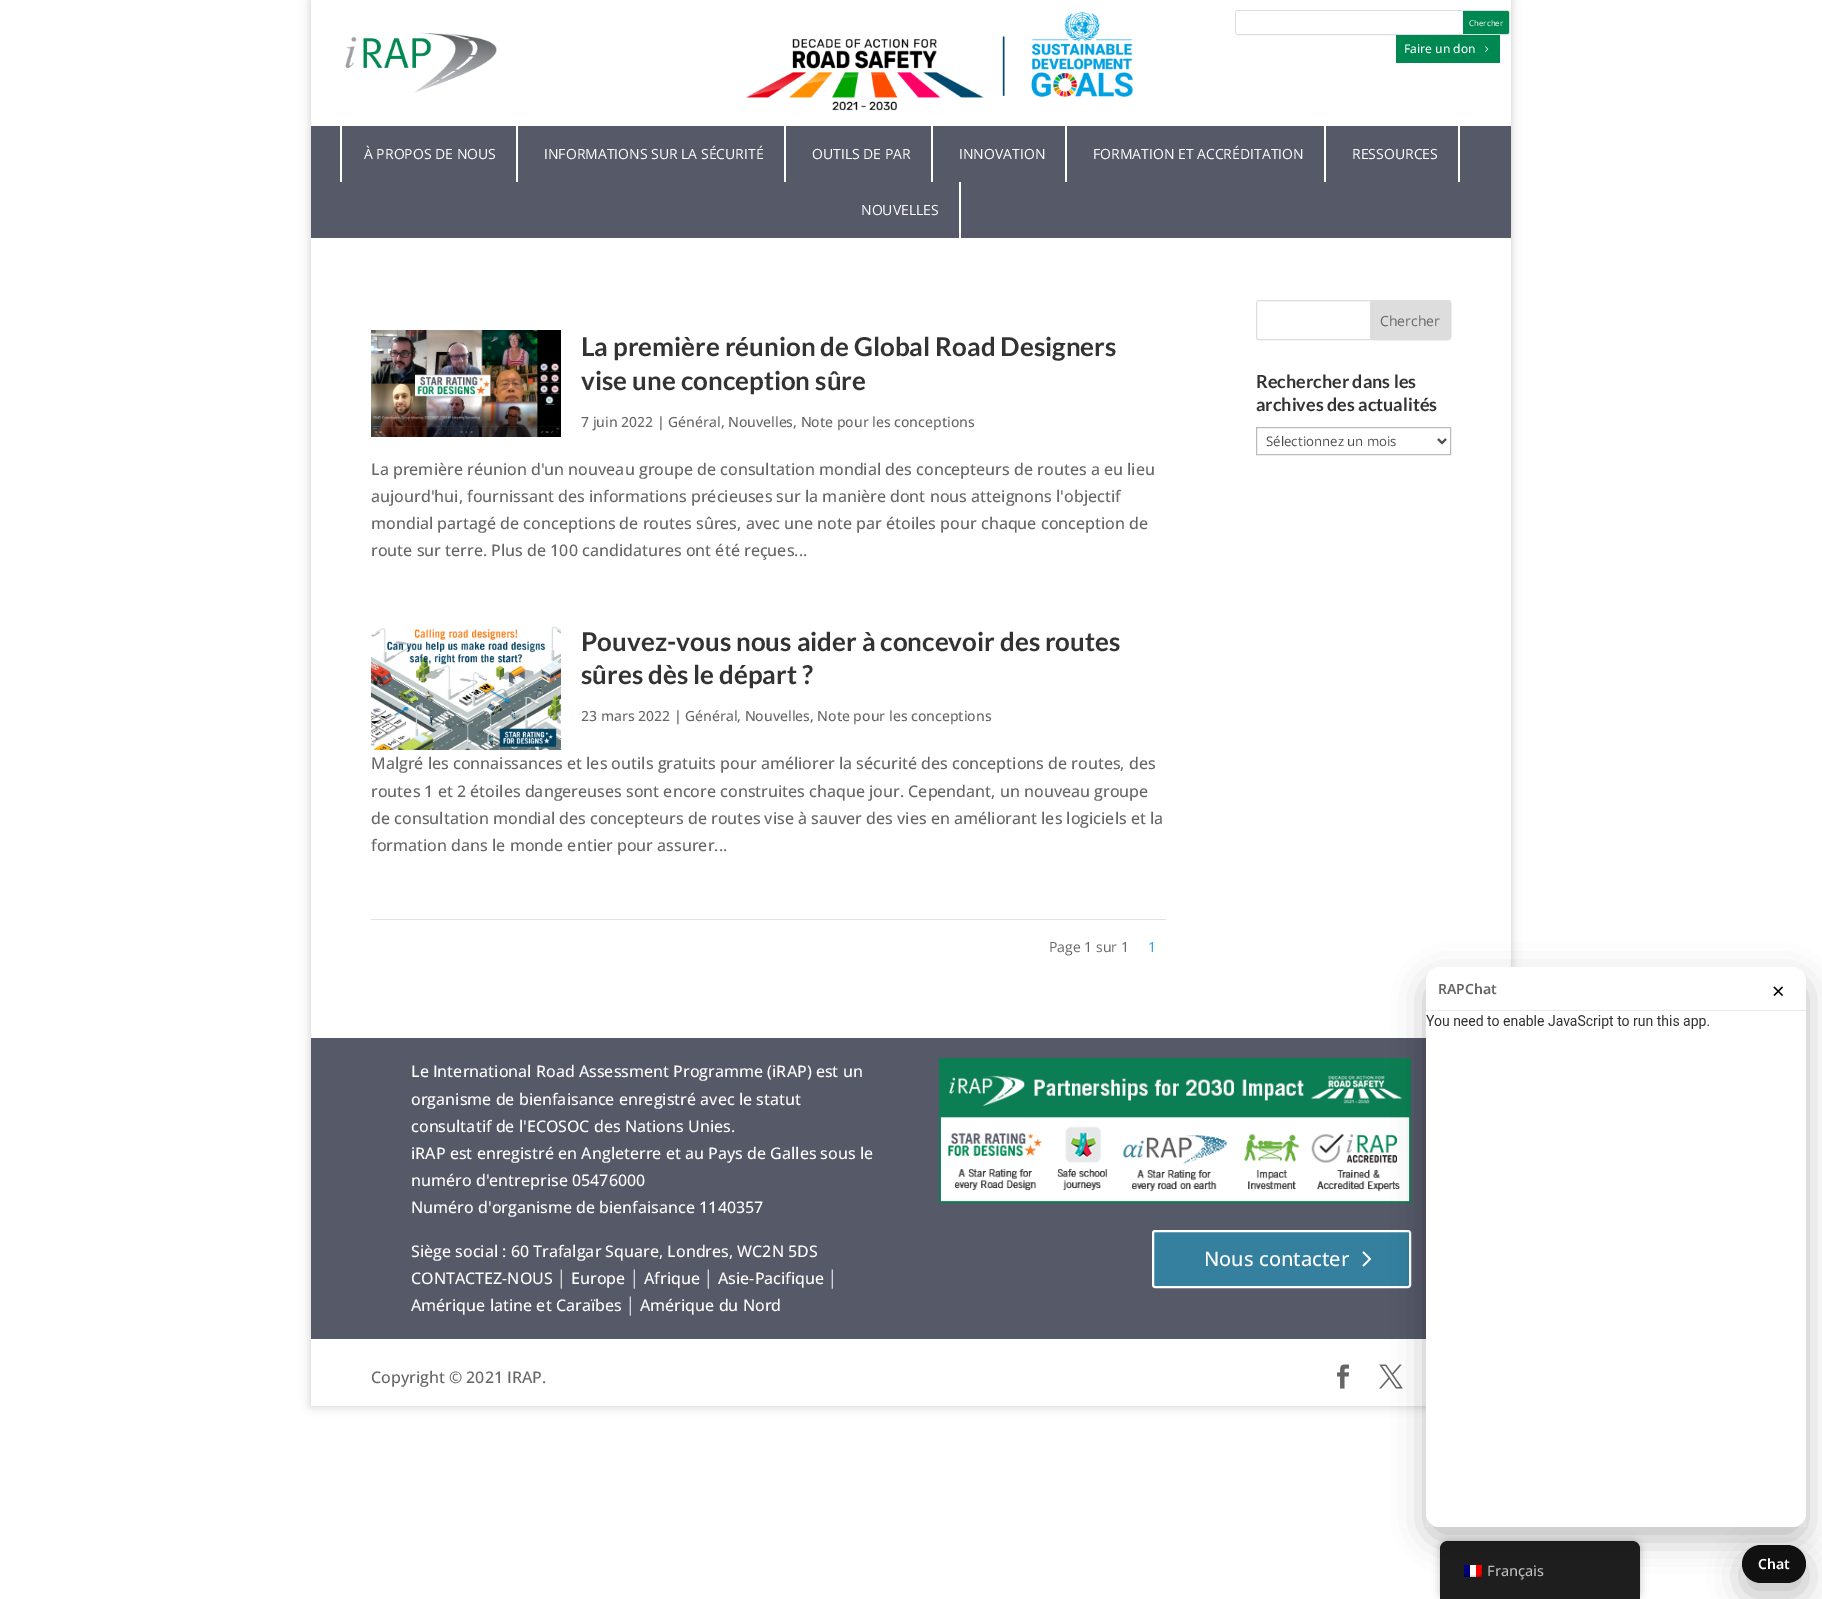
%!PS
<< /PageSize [1822 1599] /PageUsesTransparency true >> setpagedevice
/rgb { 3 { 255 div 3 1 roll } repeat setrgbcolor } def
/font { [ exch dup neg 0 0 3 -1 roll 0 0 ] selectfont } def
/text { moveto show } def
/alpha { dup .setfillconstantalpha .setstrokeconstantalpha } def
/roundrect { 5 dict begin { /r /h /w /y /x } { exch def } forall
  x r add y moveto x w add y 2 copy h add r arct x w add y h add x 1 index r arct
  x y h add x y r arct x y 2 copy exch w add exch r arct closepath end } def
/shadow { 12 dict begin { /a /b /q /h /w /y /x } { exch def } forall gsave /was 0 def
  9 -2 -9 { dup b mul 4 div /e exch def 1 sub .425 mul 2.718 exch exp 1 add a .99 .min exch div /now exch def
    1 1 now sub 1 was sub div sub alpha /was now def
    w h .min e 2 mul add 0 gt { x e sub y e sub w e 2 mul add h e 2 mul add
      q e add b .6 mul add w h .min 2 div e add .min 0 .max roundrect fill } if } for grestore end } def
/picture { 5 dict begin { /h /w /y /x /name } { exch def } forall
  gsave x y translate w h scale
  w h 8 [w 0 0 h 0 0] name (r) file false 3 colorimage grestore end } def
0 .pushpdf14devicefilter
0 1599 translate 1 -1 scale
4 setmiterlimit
255 255 255 rgb
0 0 1822 1599 rectfill
gsave
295 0 moveto 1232 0 rlineto 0 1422 rlineto -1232 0 rlineto closepath 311 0 moveto 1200 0 rlineto 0 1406 rlineto -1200 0 rlineto closepath eoclip newpath
0 0 0 rgb
311 0 1200 1406 0 5 0.2 shadow
grestore
(img_01.rgb) 345 33 152 60 picture
(img_02.rgb) 746 12 387 99 picture
221 221 221 rgb
1235.5 10.5 274 24 2.5 roundrect stroke
255 255 255 rgb
1238 11 moveto 225 0 rlineto 0 23 rlineto -225 0 rlineto -1 0 -2 -1 -2 -2 rcurveto 0 -19 rlineto 0 -1 1 -2 2 -2 rcurveto closepath fill
0 136 82 rgb
1463 11 moveto 44 0 rlineto 1 0 2 1 2 2 rcurveto 0 19 rlineto 0 1 -1 2 -2 2 rcurveto -44 0 rlineto closepath fill
1396 35 104 28 rectfill
(img_03.rgb) 1485 46 4 6 picture
86 89 104 rgb
311 126 1200 112 rectfill
255 255 255 rgb
516 126 2 56 rectfill
340 126 2 56 rectfill
784 126 2 56 rectfill
931 126 2 56 rectfill
1065 126 2 56 rectfill
1324 126 2 56 rectfill
1458 126 2 56 rectfill
959 182 2 56 rectfill
(img_04.rgb) 371 330 190 107 picture
(img_05.rgb) 371 626 190 124 picture
226 226 226 rgb
371 919 795 1 rectfill
221 221 221 rgb
1256.5 300.5 194 39 2.5 roundrect stroke
1370.5 300.5 80 39 2.5 roundrect gsave fill grestore
stroke
187 187 187 rgb
1256.5 427.5 194 27 rectstroke
78 78 78 rgb
2 setlinewidth
1438 439 moveto 4 4 rlineto 4 -4 rlineto stroke
86 89 104 rgb
311 1038 1115 301 rectfill
(img_06.rgb) 939 1058 472 145 picture
53 128 159 rgb
1153 1231 257 56 2 roundrect gsave fill grestore
255 255 255 rgb
stroke
(img_07.rgb) 1362 1251 9 16 picture
(img_08.rgb) 1337 1364 12 25 picture
(img_09.rgb) 1379 1364 24 25 picture
0 0 0 rgb
1440 1541 200 58 8 4 0.25 shadow
30 30 30 rgb
1448 1541 moveto 184 0 rlineto 4.5 0 8 3.5 8 8 rcurveto 0 50 rlineto -200 0 rlineto 0 -50 rlineto 0 -4.5 3.5 -8 8 -8 rcurveto closepath fill
(img_11.rgb) 1464 1565 18 12 picture
0 0 0 rgb
1742 1557 64 38 19 16 0.25 shadow
17 17 17 rgb
1742 1545 64 38 19 roundrect fill
0 0 0 rgb
1426 979 380 560 14 16 0.25 shadow
255 255 255 rgb
1426 967 380 560 14 roundrect fill
235 235 235 rgb
1426 1010 380 1 rectfill
(img_10.rgb) 1426 1015 380 512 picture
/OpenSans-Regular 8 font
255 255 255 rgb
(Chercher) 1469 26 text
/OpenSans-Medium 12 font
(Faire un don) 1404 53 text
/OpenSans-Regular 14 font
(À PROPOS DE NOUS) 364 159 text
(INFORMATIONS SUR LA SÉCURITÉ) 544 159 text
(OUTILS DE PAR) 812 159 text
(INNOVATION) 959 159 text
(FORMATION ET ACCRÉDITATION) 1093 159 text
(RESSOURCES) 1352 159 text
(NOUVELLES) 861 215 text
/Lato-Bold 26 font
51 51 51 rgb
(La première réunion de Global Road Designers) 581 356 text
(vise une conception sûre) 581 390 text
/OpenSans-Medium 14 font
102 102 102 rgb
(7 juin 2022 | Général, Nouvelles, Note pour les conceptions) 581 427 text
/OpenSans-Medium 16 font
(La première réunion d'un nouveau groupe de consultation mondial des concepteurs de routes a eu lieu) 371 475 text
(aujourd'hui, fournissant des informations précieuses sur la manière dont nous atteignons l'objectif) 371 502 text
(mondial partagé de conceptions de routes sûres, avec une note par étoiles pour chaque conception de) 371 529 text
(route sur terre. Plus de 100 candidatures ont été reçues...) 371 556 text
/Lato-Bold 26 font
51 51 51 rgb
(Pouvez-vous nous aider à concevoir des routes) 581 651 text
(sûres dès le départ ?) 581 684 text
/OpenSans-Medium 14 font
102 102 102 rgb
(23 mars 2022 | Général, Nouvelles, Note pour les conceptions) 581 721 text
/OpenSans-Medium 16 font
(Malgré les connaissances et les outils gratuits pour améliorer la sécurité des conceptions de routes, des) 371 769 text
(routes 1 et 2 étoiles dangereuses sont encore construites chaque jour. Cependant, un nouveau groupe) 371 797 text
(de consultation mondial des concepteurs de routes vise à sauver des vies en améliorant les logiciels et la) 371 824 text
(formation dans le monde entier pour assurer...) 371 851 text
/OpenSans-Regular 14 font
(Page 1 sur 1) 1049 952 text
46 163 242 rgb
(1) 1148 952 text
102 102 102 rgb
(Chercher) 1380 326 text
/Lato-Bold 18 font
51 51 51 rgb
(Rechercher dans les) 1256 388 text
(archives des actualités) 1256 411 text
/OpenSans-Regular 13.25 font
78 78 78 rgb
(Sélectionnez un mois) 1266 446 text
/OpenSans-Medium 16 font
255 255 255 rgb
(Le International Road Assessment Programme \(iRAP\) est un) 411 1077 text
(organisme de bienfaisance enregistré avec le statut) 411 1105 text
(consultatif de l'ECOSOC des Nations Unies.) 411 1132 text
(iRAP est enregistré en Angleterre et au Pays de Galles sous le) 411 1159 text
(numéro d'entreprise 05476000) 411 1186 text
(Numéro d'organisme de bienfaisance 1140357) 411 1213 text
(Siège social : 60 Trafalgar Square, Londres, WC2N 5DS) 411 1257 text
(CONTACTEZ-NOUS) 411 1284 text
/LiberationSans-Regular 16 font
(│) 557 1284 text
/OpenSans-Medium 16 font
(Europe) 571 1284 text
/LiberationSans-Regular 16 font
(│) 630 1284 text
/OpenSans-Medium 16 font
(Afrique) 644 1284 text
/LiberationSans-Regular 16 font
(│) 704 1284 text
/OpenSans-Medium 16 font
(Asie-Pacifique) 718 1284 text
/LiberationSans-Regular 16 font
(│) 828 1284 text
/OpenSans-Medium 16 font
(Amérique latine et Caraïbes) 411 1311 text
/LiberationSans-Regular 16 font
(│) 626 1311 text
/OpenSans-Medium 16 font
(Amérique du Nord) 640 1311 text
/OpenSans-Medium 20 font
(Nous contacter) 1204 1266 text
/OpenSans-Medium 16 font
102 102 102 rgb
(Copyright © 2021 IRAP.) 371 1383 text
/NotoSans-SemiBold 14 font
(RAPChat) 1438 994 text
/NotoSans-Regular 22 font
0 0 0 rgb
(×) 1772 999 text
/OpenSans-Medium 14.5 font
189 189 189 rgb
(Français) 1487 1576 text
/NotoSans-SemiBold 14 font
255 255 255 rgb
(Chat) 1758 1569 text
.poppdf14devicefilter showpage
